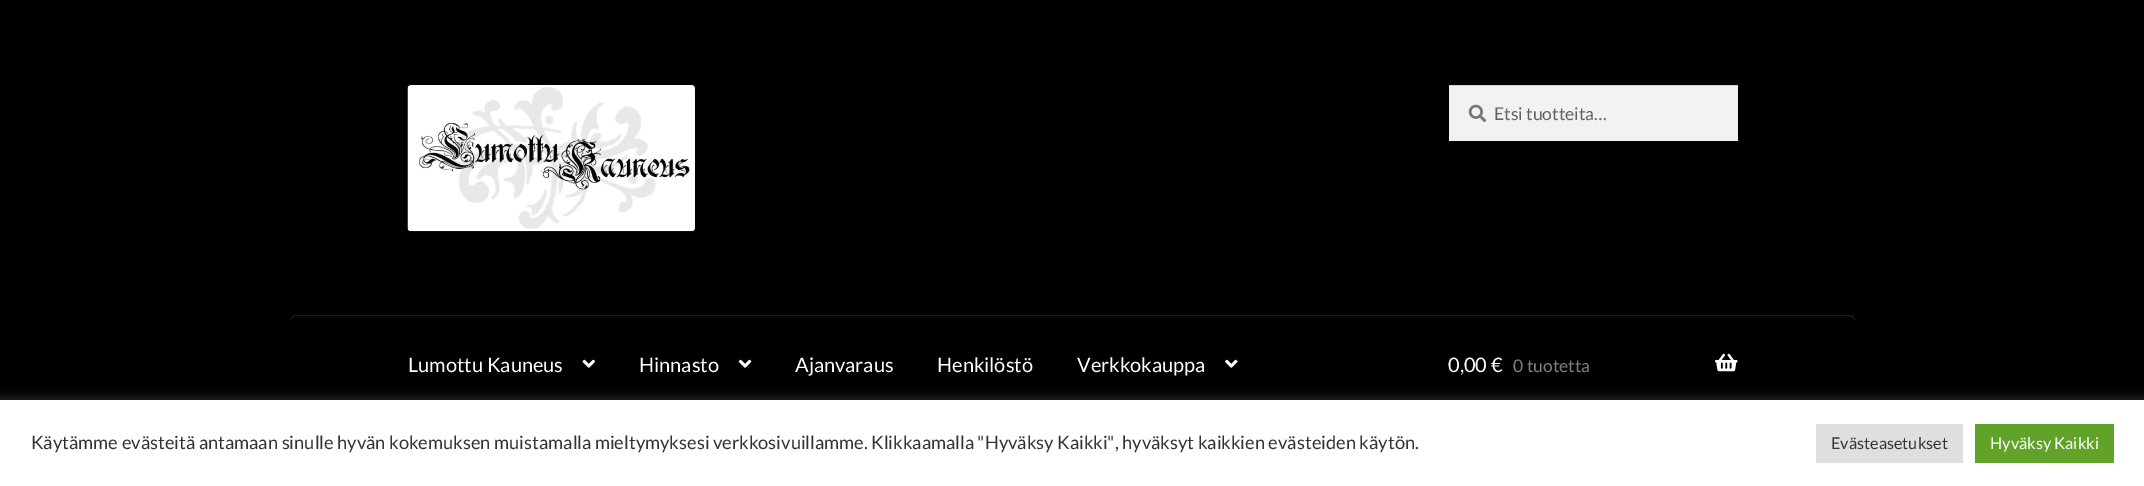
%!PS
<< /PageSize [2144 486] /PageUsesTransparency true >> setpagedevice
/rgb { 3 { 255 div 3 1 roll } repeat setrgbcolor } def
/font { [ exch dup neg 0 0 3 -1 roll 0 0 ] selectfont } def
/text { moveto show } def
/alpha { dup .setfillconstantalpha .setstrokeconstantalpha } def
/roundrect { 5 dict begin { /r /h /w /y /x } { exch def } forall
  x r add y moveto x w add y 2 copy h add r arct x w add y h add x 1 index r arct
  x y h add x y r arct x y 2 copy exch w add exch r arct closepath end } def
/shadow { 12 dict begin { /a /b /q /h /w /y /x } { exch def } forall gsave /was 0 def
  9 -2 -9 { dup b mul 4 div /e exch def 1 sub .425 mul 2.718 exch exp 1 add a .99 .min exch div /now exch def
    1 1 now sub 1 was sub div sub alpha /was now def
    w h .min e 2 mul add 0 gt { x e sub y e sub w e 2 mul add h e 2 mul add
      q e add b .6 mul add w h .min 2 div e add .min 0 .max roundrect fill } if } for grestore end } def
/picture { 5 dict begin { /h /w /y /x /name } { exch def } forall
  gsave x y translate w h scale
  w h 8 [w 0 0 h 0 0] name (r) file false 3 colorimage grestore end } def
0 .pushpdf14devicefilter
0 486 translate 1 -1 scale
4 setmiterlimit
0 0 0 rgb
0 0 2144 486 rectfill
(img_01.rgb) 407 85 288 147 picture
242 242 242 rgb
1449 86 289 55 rectfill
(img_02.rgb) 1468 104 19 19 picture
212 212 212 rgb
1449 85 289 1 rectfill
26 26 26 rgb
297 316 moveto 1551 0 rlineto 4 0 7 3 7 7 rcurveto 0 -4 -1 -8 -6 -8 rcurveto -1553 0 rlineto -5 0 -6 4 -6 8 rcurveto 0 -4 3 -7 7 -7 rcurveto closepath fill
(img_03.rgb) 582 359 13 9 picture
(img_04.rgb) 738 359 14 9 picture
(img_05.rgb) 1225 359 13 9 picture
(img_06.rgb) 1715 353 23 19 picture
172 171 171 rgb
0 399 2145 86 0 6 0.3 shadow
255 255 255 rgb
0 400 2144 86 rectfill
222 223 224 rgb
1816 424 147 39 rectfill
97 162 41 rgb
1975 424 139 39 rectfill
/Lato-Regular 17.5 font
97 97 97 rgb
(Etsi tuotteita…) 1494 120 text
/Lato-Regular 20 font
255 255 255 rgb
(Lumottu Kauneus) 408 372 text
(Hinnasto) 639 372 text
(Ajanvaraus) 795 372 text
(Henkilöstö) 937 372 text
(Verkkokauppa) 1077 372 text
(0,00 €) 1448 372 text
/Lato-Regular 17.5 font
128 128 128 rgb
(0 tuotetta) 1513 372 text
/Lato-Regular 18.33 font
51 51 51 rgb
(Käytämme evästeitä antamaan sinulle hyvän kokemuksen muistamalla mieltymyksesi verkkosivuillamme. Klikkaamalla "Hyväksy Kaikki", hyväksyt kaikkien evästeiden käytön.) 31 449 text
/Lato-Regular 16.25 font
(Evästeasetukset) 1831 449 text
255 255 255 rgb
(Hyväksy Kaikki) 1990 449 text
.poppdf14devicefilter showpage
